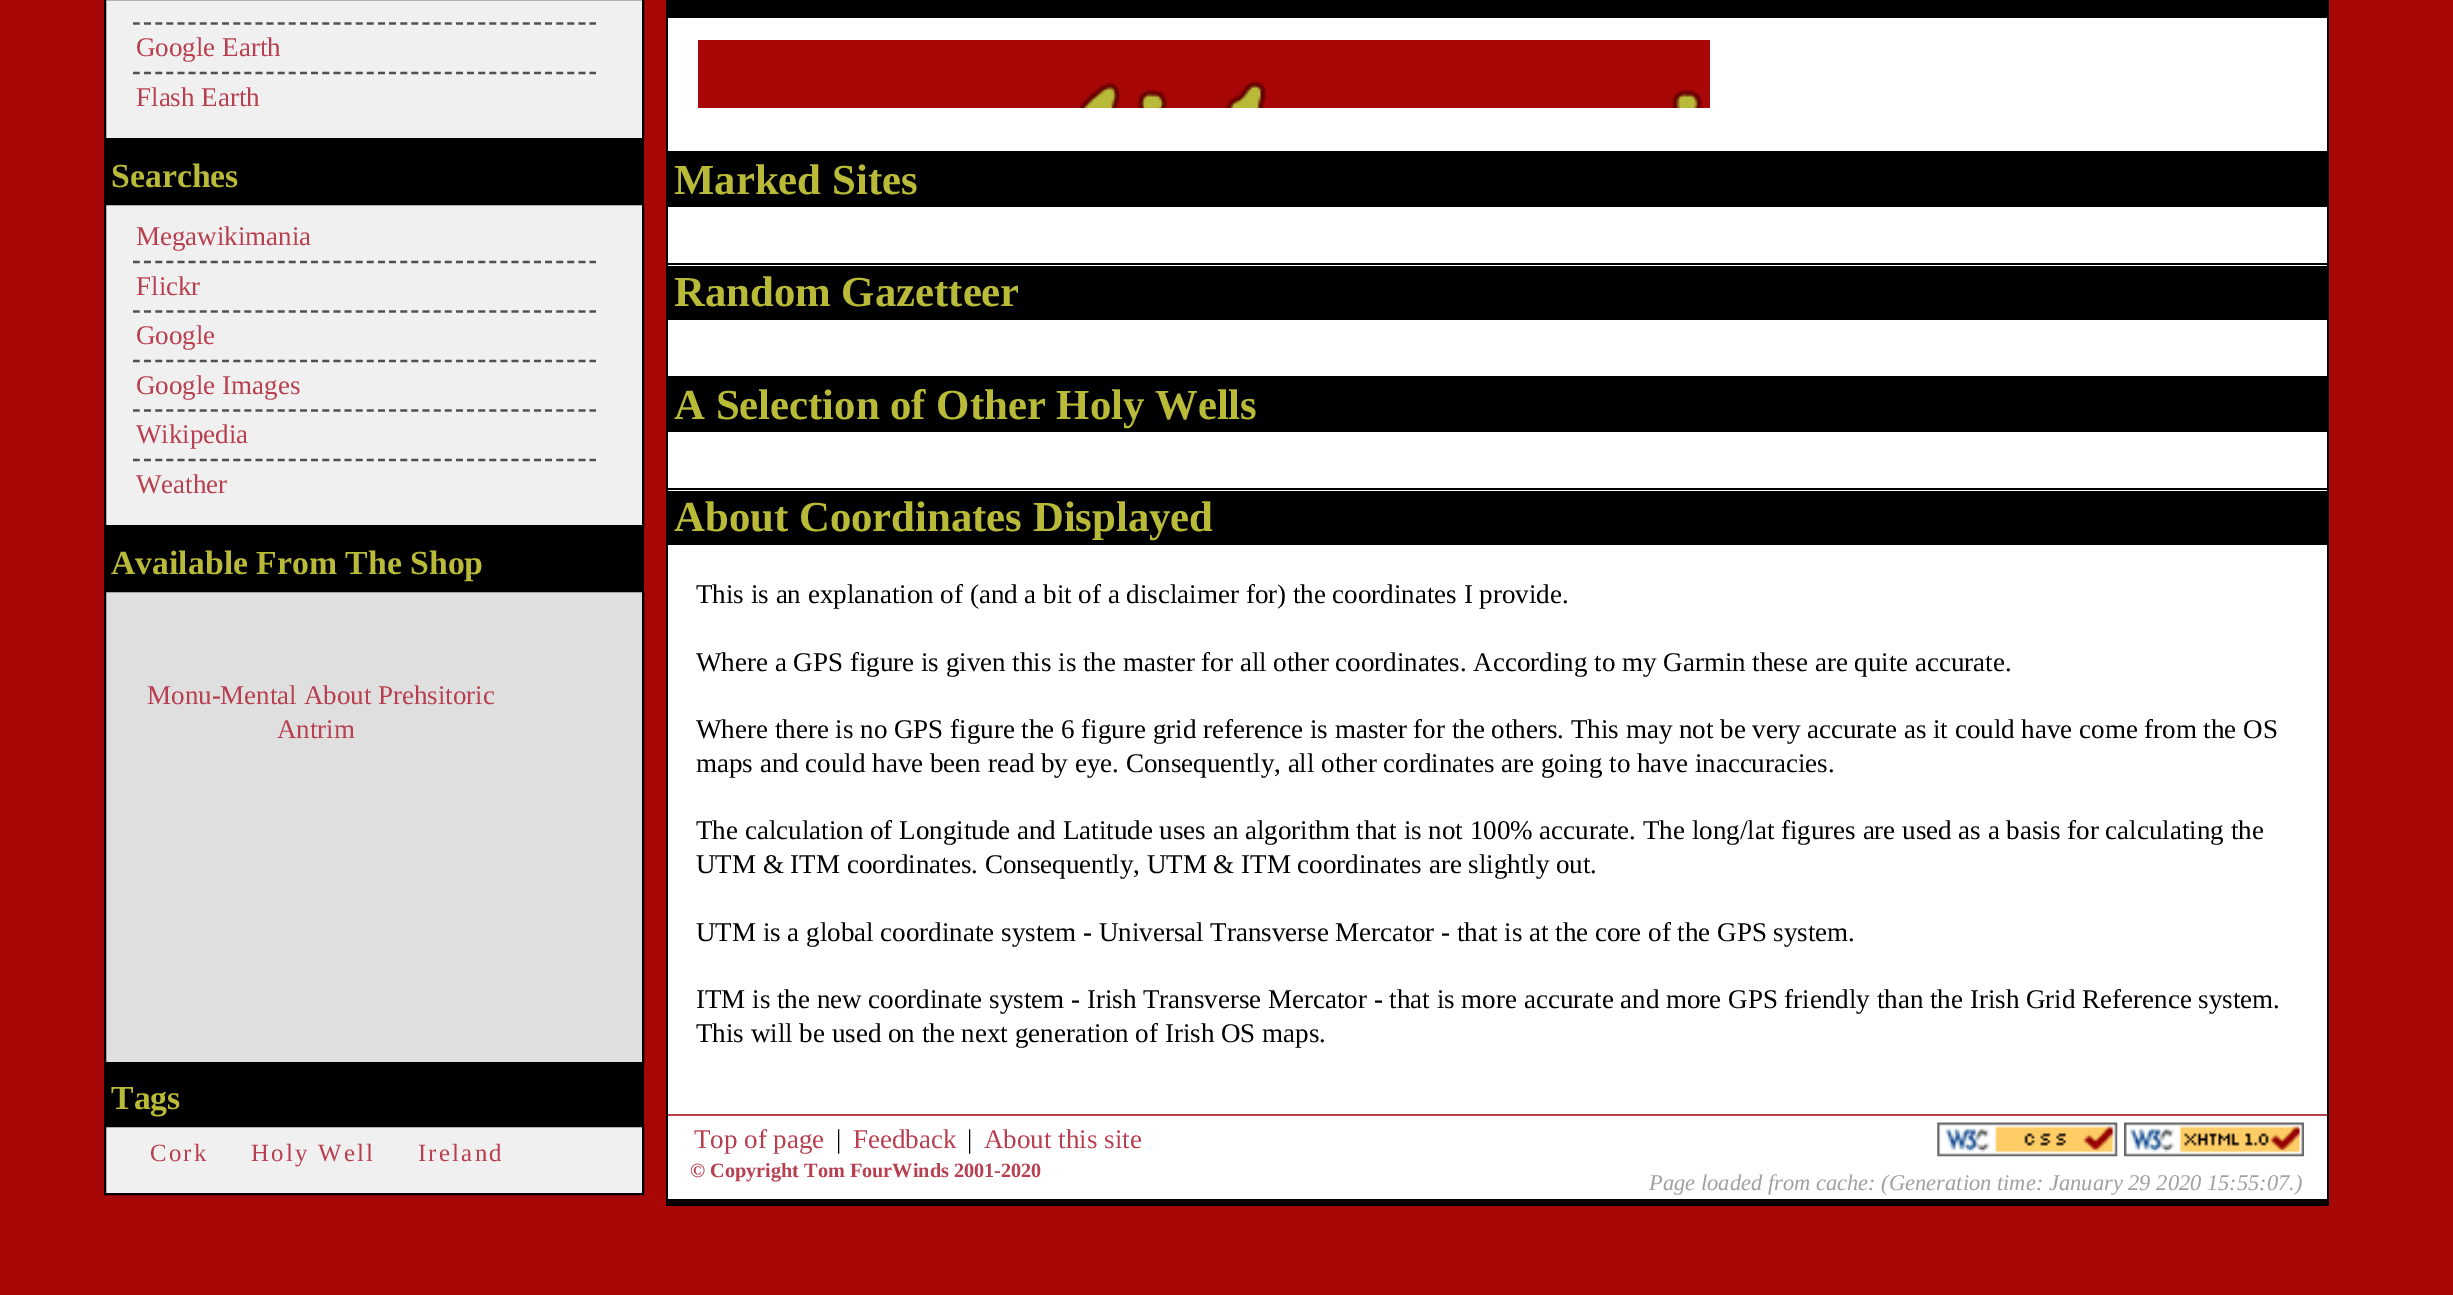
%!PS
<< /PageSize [2453 1295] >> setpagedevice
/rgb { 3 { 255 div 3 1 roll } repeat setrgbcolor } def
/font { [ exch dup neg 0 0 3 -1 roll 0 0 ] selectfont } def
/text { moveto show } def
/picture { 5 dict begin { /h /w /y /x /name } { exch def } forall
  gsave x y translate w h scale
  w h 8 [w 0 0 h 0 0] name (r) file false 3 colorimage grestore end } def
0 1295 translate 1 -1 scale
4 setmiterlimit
168 7 7 rgb
0 0 2453 1295 rectfill
240 240 240 rgb
105 -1 moveto 538 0 rlineto 0 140 rlineto -538 0 rlineto closepath gsave fill grestore
0 0 0 rgb
2 setlinewidth
stroke
80 80 80 rgb
2.2 setlinewidth
[6.75 4.39] 0 setdash
133 23.5 moveto 463 0 rlineto stroke
133 73 moveto 463 0 rlineto stroke
0 0 0 rgb
104 140 540 63 rectfill
240 240 240 rgb
105 204 moveto 538 0 rlineto 0 322 rlineto -538 0 rlineto closepath gsave fill grestore
0 0 0 rgb
2 setlinewidth
[] 0 setdash
stroke
80 80 80 rgb
2.2 setlinewidth
[6.75 4.39] 0 setdash
133 262 moveto 463 0 rlineto stroke
133 311.5 moveto 463 0 rlineto stroke
133 361 moveto 463 0 rlineto stroke
133 410.5 moveto 463 0 rlineto stroke
133 460 moveto 463 0 rlineto stroke
0 0 0 rgb
104 527 540 63 rectfill
223 223 223 rgb
106 592 536 470 rectfill
0 0 0 rgb
2 setlinewidth
[] 0 setdash
105 591 538 475 rectstroke
104 1062 540 63 rectfill
240 240 240 rgb
105 1126 moveto 538 0 rlineto 0 68 rlineto -538 0 rlineto closepath gsave fill grestore
0 0 0 rgb
stroke
255 255 255 rgb
668 18 1659 1181 rectfill
0 0 0 rgb
2327 0 2 1206 rectfill
666 1199 1663 7 rectfill
666 0 2 1206 rectfill
668 0 1659 18 rectfill
(img_01.rgb) 698 40 1012 68 picture
668 151 1659 56 rectfill
668 263 1659 2 rectfill
668 266 1659 54 rectfill
668 376 1659 56 rectfill
668 488 1659 2 rectfill
668 491 1659 54 rectfill
184 63 79 rgb
668 1114 1659 2 rectfill
(img_02.rgb) 1937 1122 181 35 picture
(img_03.rgb) 2124 1122 180 35 picture
/LiberationSerif-Regular 27 font
(Google Earth) 136 56 text
(Flash Earth) 136 106 text
/LiberationSerif-Bold 33.75 font
184 186 56 rgb
(Searches) 111 187 text
/LiberationSerif-Regular 27 font
184 63 79 rgb
(Megawikimania) 136 245 text
(Flickr) 136 295 text
(Google) 136 344 text
(Google Images) 136 394 text
(Wikipedia) 136 443 text
(Weather) 136 493 text
/LiberationSerif-Bold 33.75 font
184 186 56 rgb
(Available From The Shop) 111 574 text
/LiberationSerif-Regular 27 font
184 63 79 rgb
(Monu-Mental About Prehsitoric) 147 704 text
(Antrim) 277 738 text
/LiberationSerif-Bold 33.75 font
184 186 56 rgb
(Tags) 111 1109 text
/LiberationSerif-Regular 24.75 font
184 63 79 rgb
150 1161 moveto 2.25 0 (Cork) ashow
251 1161 moveto 2.25 0 (Holy Well) ashow
418 1161 moveto 2.25 0 (Ireland) ashow
/LiberationSerif-Bold 42.75 font
184 186 56 rgb
(Marked Sites) 674 194 text
(Random Gazetteer) 674 306 text
(A Selection of Other Holy Wells) 674 419 text
(About Coordinates Displayed) 674 531 text
/LiberationSerif-Regular 27 font
0 0 0 rgb
(This is an explanation of \(and a bit of a disclaimer for\) the coordinates I provide.) 696 603 text
(Where a GPS figure is given this is the master for all other coordinates. According to my Garmin these are quite accurate.) 696 671 text
(Where there is no GPS figure the 6 figure grid reference is master for the others. This may not be very accurate as it could have come from the OS) 696 738 text
(maps and could have been read by eye. Consequently, all other cordinates are going to have inaccuracies.) 696 772 text
(The calculation of Longitude and Latitude uses an algorithm that is not 100% accurate. The long/lat figures are used as a basis for calculating the) 696 839 text
(UTM & ITM coordinates. Consequently, UTM & ITM coordinates are slightly out.) 696 873 text
(UTM is a global coordinate system - Universal Transverse Mercator - that is at the core of the GPS system.) 696 941 text
(ITM is the new coordinate system - Irish Transverse Mercator - that is more accurate and more GPS friendly than the Irish Grid Reference system.) 696 1008 text
(This will be used on the next generation of Irish OS maps.) 696 1042 text
184 63 79 rgb
(Top of page) 694 1148 text
0 0 0 rgb
(|) 836 1148 text
184 63 79 rgb
(Feedback) 853 1148 text
0 0 0 rgb
(|) 967 1148 text
184 63 79 rgb
(About this site) 984 1148 text
/LiberationSerif-Italic 22.5 font
160 160 160 rgb
(Page loaded from cache: \(Generation time: January 29 2020 15:55:07.\)) 1649 1190 text
/LiberationSerif-Bold 20.25 font
184 63 79 rgb
(© Copyright Tom FourWinds 2001-2020) 690 1177 text
showpage
